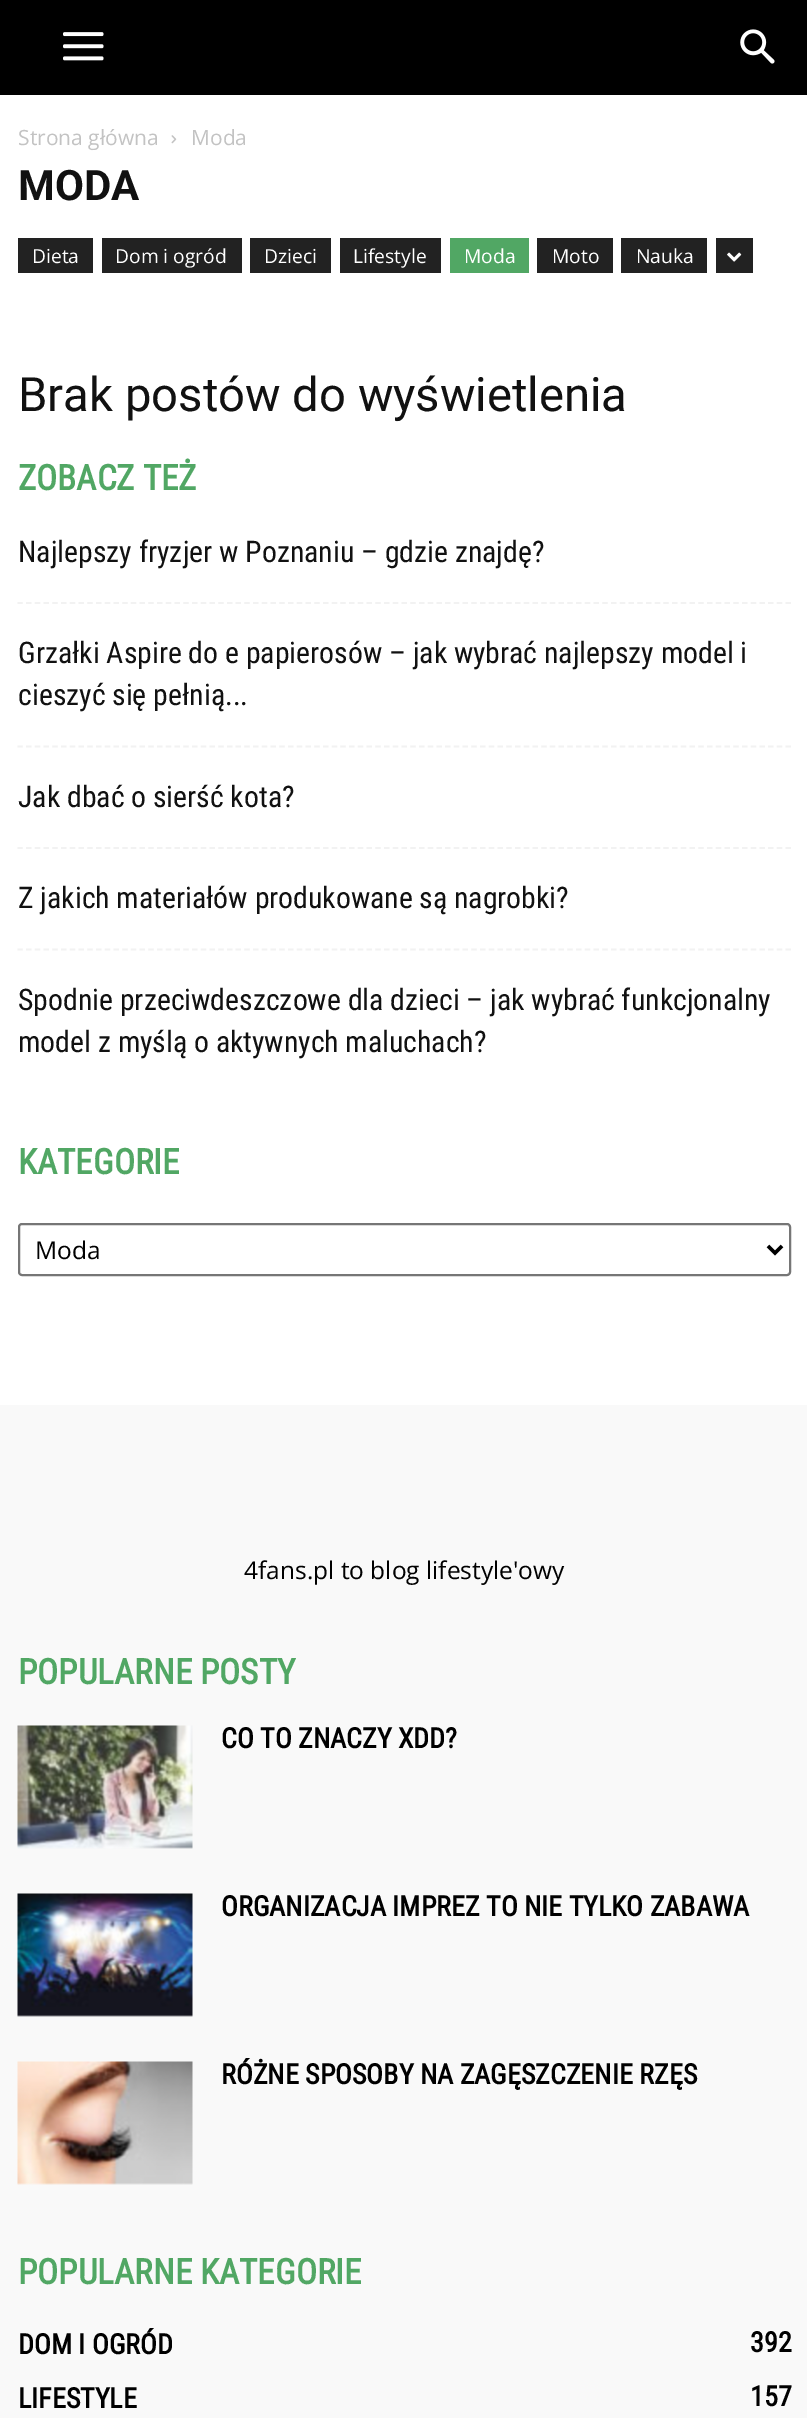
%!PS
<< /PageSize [807 2418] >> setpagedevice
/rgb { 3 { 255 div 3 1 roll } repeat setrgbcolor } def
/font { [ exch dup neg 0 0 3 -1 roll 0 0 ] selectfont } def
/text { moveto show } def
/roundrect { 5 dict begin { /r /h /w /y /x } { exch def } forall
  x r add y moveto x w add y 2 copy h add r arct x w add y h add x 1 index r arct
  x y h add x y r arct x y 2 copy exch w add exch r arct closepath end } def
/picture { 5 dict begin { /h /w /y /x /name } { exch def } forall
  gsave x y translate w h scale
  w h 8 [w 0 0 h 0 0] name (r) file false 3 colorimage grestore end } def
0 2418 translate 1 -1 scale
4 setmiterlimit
255 255 255 rgb
0 0 807 2418 rectfill
0 0 0 rgb
0 0 807 95 rectfill
(img_01.rgb) 63 32 41 29 picture
(img_02.rgb) 740 29 35 35 picture
(img_03.rgb) 171 135 6 9 picture
34 34 34 rgb
18 238 75 35 rectfill
102 238 140 35 rectfill
250 238 81 35 rectfill
340 238 101 35 rectfill
81 167 100 rgb
450 238 79 35 rectfill
34 34 34 rgb
537 238 76 35 rectfill
621 238 86 35 rectfill
716 238 37 35 rectfill
(img_04.rgb) 727 252 15 10 picture
242 242 242 rgb
1.8 setlinewidth
[5.25 3.48] 0 setdash
17.5 603 moveto 773.5 0 rlineto stroke
17.5 746.5 moveto 773.5 0 rlineto stroke
17.5 848 moveto 773.5 0 rlineto stroke
17.5 949.5 moveto 773.5 0 rlineto stroke
118 118 118 rgb
2 setlinewidth
[] 0 setdash
19 1224 771 51 3 roundrect stroke
0 0 0 rgb
3.5 setlinewidth
768 1246 moveto 7 7 rlineto 7 -7 rlineto stroke
249 249 249 rgb
0 1405 807 1013 rectfill
(img_05.rgb) 17 1725 176 124 picture
(img_06.rgb) 17 1893 176 124 picture
(img_07.rgb) 17 2061 176 124 picture
/OpenSans-Regular 21 font
195 195 195 rgb
(Strona główna) 18 145 text
(Moda) 191 145 text
/Roboto-Bold 42 font
17 17 17 rgb
(MODA) 18 200 text
/OpenSans-Regular 19.25 font
255 255 255 rgb
(Dieta) 32 263 text
(Dom i ogród) 115 263 text
(Dzieci) 264 263 text
(Lifestyle) 353 263 text
(Moda) 464 263 text
(Moto) 552 263 text
(Nauka) 636 263 text
/Roboto-Regular 47.25 font
17 17 17 rgb
(Brak postów do wyświetlenia) 18 411 text
/RobotoCondensed-Bold 35 font
81 167 100 rgb
(ZOBACZ TEŻ) 18 490 text
/RobotoCondensed-Regular 29.75 font
17 17 17 rgb
(Najlepszy fryzjer w Poznaniu – gdzie znajdę?) 18 562 text
(Grzałki Aspire do e papierosów – jak wybrać najlepszy model i) 18 663 text
(cieszyć się pełnią...) 18 705 text
(Jak dbać o sierść kota?) 18 807 text
(Z jakich materiałów produkowane są nagrobki?) 18 908 text
(Spodnie przeciwdeszczowe dla dzieci – jak wybrać funkcjonalny) 18 1010 text
(model z myślą o aktywnych maluchach?) 18 1052 text
/RobotoCondensed-Bold 35 font
81 167 100 rgb
(KATEGORIE) 18 1174 text
/OpenSans-Regular 24.5 font
0 0 0 rgb
(Moda) 35 1259 text
(4fans.pl to blog lifestyle'owy) 244 1579 text
/RobotoCondensed-Bold 35 font
81 167 100 rgb
(POPULARNE POSTY) 18 1684 text
/RobotoCondensed-Bold 28 font
0 0 0 rgb
(CO TO ZNACZY XDD?) 221 1748 text
(ORGANIZACJA IMPREZ TO NIE TYLKO ZABAWA) 221 1916 text
(RÓŻNE SPOSOBY NA ZAGĘSZCZENIE RZĘS) 221 2084 text
/RobotoCondensed-Bold 35 font
81 167 100 rgb
(POPULARNE KATEGORIE) 18 2284 text
/RobotoCondensed-Bold 28 font
0 0 0 rgb
(DOM I OGRÓD) 18 2354 text
(392) 750 2352 text
(LIFESTYLE) 18 2408 text
(157) 750 2406 text
showpage
